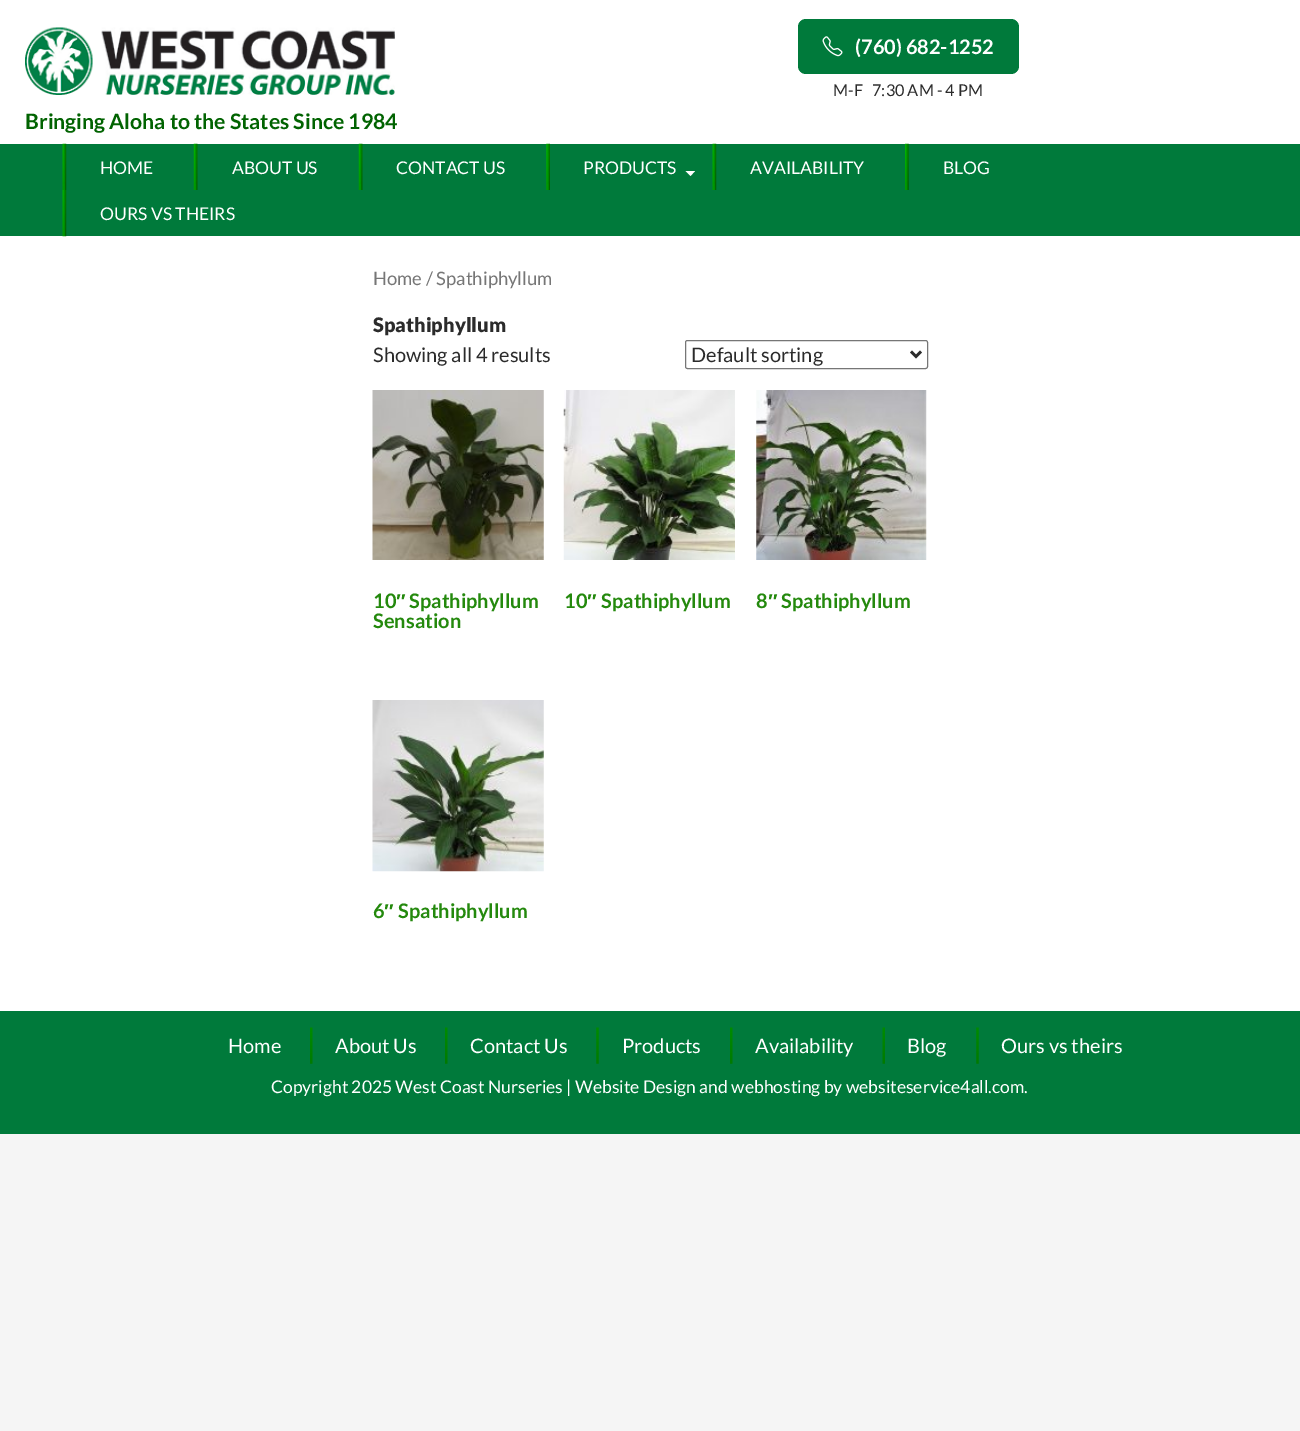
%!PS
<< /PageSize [1300 1431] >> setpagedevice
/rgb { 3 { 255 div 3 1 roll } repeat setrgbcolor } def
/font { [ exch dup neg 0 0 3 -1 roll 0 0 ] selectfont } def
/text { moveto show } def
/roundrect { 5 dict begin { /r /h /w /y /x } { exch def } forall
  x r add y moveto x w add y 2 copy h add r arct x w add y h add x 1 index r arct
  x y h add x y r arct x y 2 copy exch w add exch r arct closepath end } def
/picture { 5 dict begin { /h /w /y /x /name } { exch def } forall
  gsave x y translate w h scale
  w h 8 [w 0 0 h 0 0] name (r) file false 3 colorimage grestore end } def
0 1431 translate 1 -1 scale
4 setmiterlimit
245 245 245 rgb
0 0 1300 1431 rectfill
255 255 255 rgb
0 0 1300 1011 rectfill
0 122 59 rgb
798 19 221 55 8 roundrect fill
(img_01.rgb) 822 36 21 21 picture
(img_02.rgb) 25 27 370 68 picture
0 144 1300 92 rectfill
(img_03.rgb) 62 143 5 47 picture
(img_04.rgb) 193 143 5 47 picture
(img_04.rgb) 358 143 5 47 picture
(img_05.rgb) 546 143 4 47 picture
255 255 255 rgb
685.5 171 moveto 5 5 rlineto 4.5 -5 rlineto closepath fill
(img_03.rgb) 712 143 5 47 picture
(img_06.rgb) 905 143 4 47 picture
(img_07.rgb) 62 190 5 47 picture
118 118 118 rgb
685.5 340.5 242 28 2 roundrect stroke
43 43 43 rgb
2.5 setlinewidth
911 351.5 moveto 5 5 rlineto 5 -5 rlineto stroke
(img_08.rgb) 372 390 172 170 picture
(img_09.rgb) 563 390 172 170 picture
(img_10.rgb) 756 390 171 170 picture
(img_11.rgb) 372 700 172 172 picture
0 122 59 rgb
0 1011 1300 123 rectfill
(img_12.rgb) 310 1027 3 37 picture
(img_12.rgb) 445 1027 3 37 picture
(img_13.rgb) 596 1027 3 37 picture
(img_12.rgb) 730 1027 3 37 picture
(img_14.rgb) 882 1027 3 37 picture
(img_13.rgb) 976 1027 3 37 picture
/Lato-Bold 20 font
255 255 255 rgb
(\(760\) 682-1252) 855 54 text
/Lato-Regular 16.25 font
43 43 43 rgb
(M-F) 833 96 text
(7:30 AM - 4 PM) 872 96 text
/Lato-Bold 21.25 font
1 99 1 rgb
(Bringing Aloha to the States Since 1984) 25 129 text
/Lato-Regular 17.5 font
255 255 255 rgb
(HOME) 100 174 text
(ABOUT US) 232 174 text
(CONTACT US) 396 174 text
(PRODUCTS) 583 174 text
(AVAILABILITY) 750 174 text
(BLOG) 943 174 text
(OURS VS THEIRS) 100 220 text
/Lato-Regular 18.5 font
118 118 118 rgb
(Home / Spathiphyllum) 373 285 text
/Lato-Black 20 font
43 43 43 rgb
(Spathiphyllum) 373 332 text
/Lato-Regular 20 font
(Showing all 4 results) 373 362 text
(Default sorting) 691 362 text
/Lato-Bold 20 font
36 137 13 rgb
(10) 373 608 text
/LiberationSans-Bold 20 font
(″) 396 608 text
/Lato-Bold 20 font
(Spathiphyllum) 409 608 text
(Sensation) 373 628 text
(10) 564 608 text
/LiberationSans-Bold 20 font
(″) 587 608 text
/Lato-Bold 20 font
(Spathiphyllum) 601 608 text
(8) 756 608 text
/LiberationSans-Bold 20 font
(″) 768 608 text
/Lato-Bold 20 font
(Spathiphyllum) 781 608 text
(6) 373 918 text
/LiberationSans-Bold 20 font
(″) 384 918 text
/Lato-Bold 20 font
(Spathiphyllum) 398 918 text
/Lato-Regular 20 font
255 255 255 rgb
(Home) 228 1053 text
(About Us) 335 1053 text
(Contact Us) 470 1053 text
(Products) 622 1053 text
(Availability) 755 1053 text
(Blog) 907 1053 text
(Ours vs theirs) 1001 1053 text
/Lato-Regular 17.5 font
(Copyright 2025 West Coast Nurseries | Website Design and webhosting by websiteservice4all.com.) 271 1093 text
showpage
